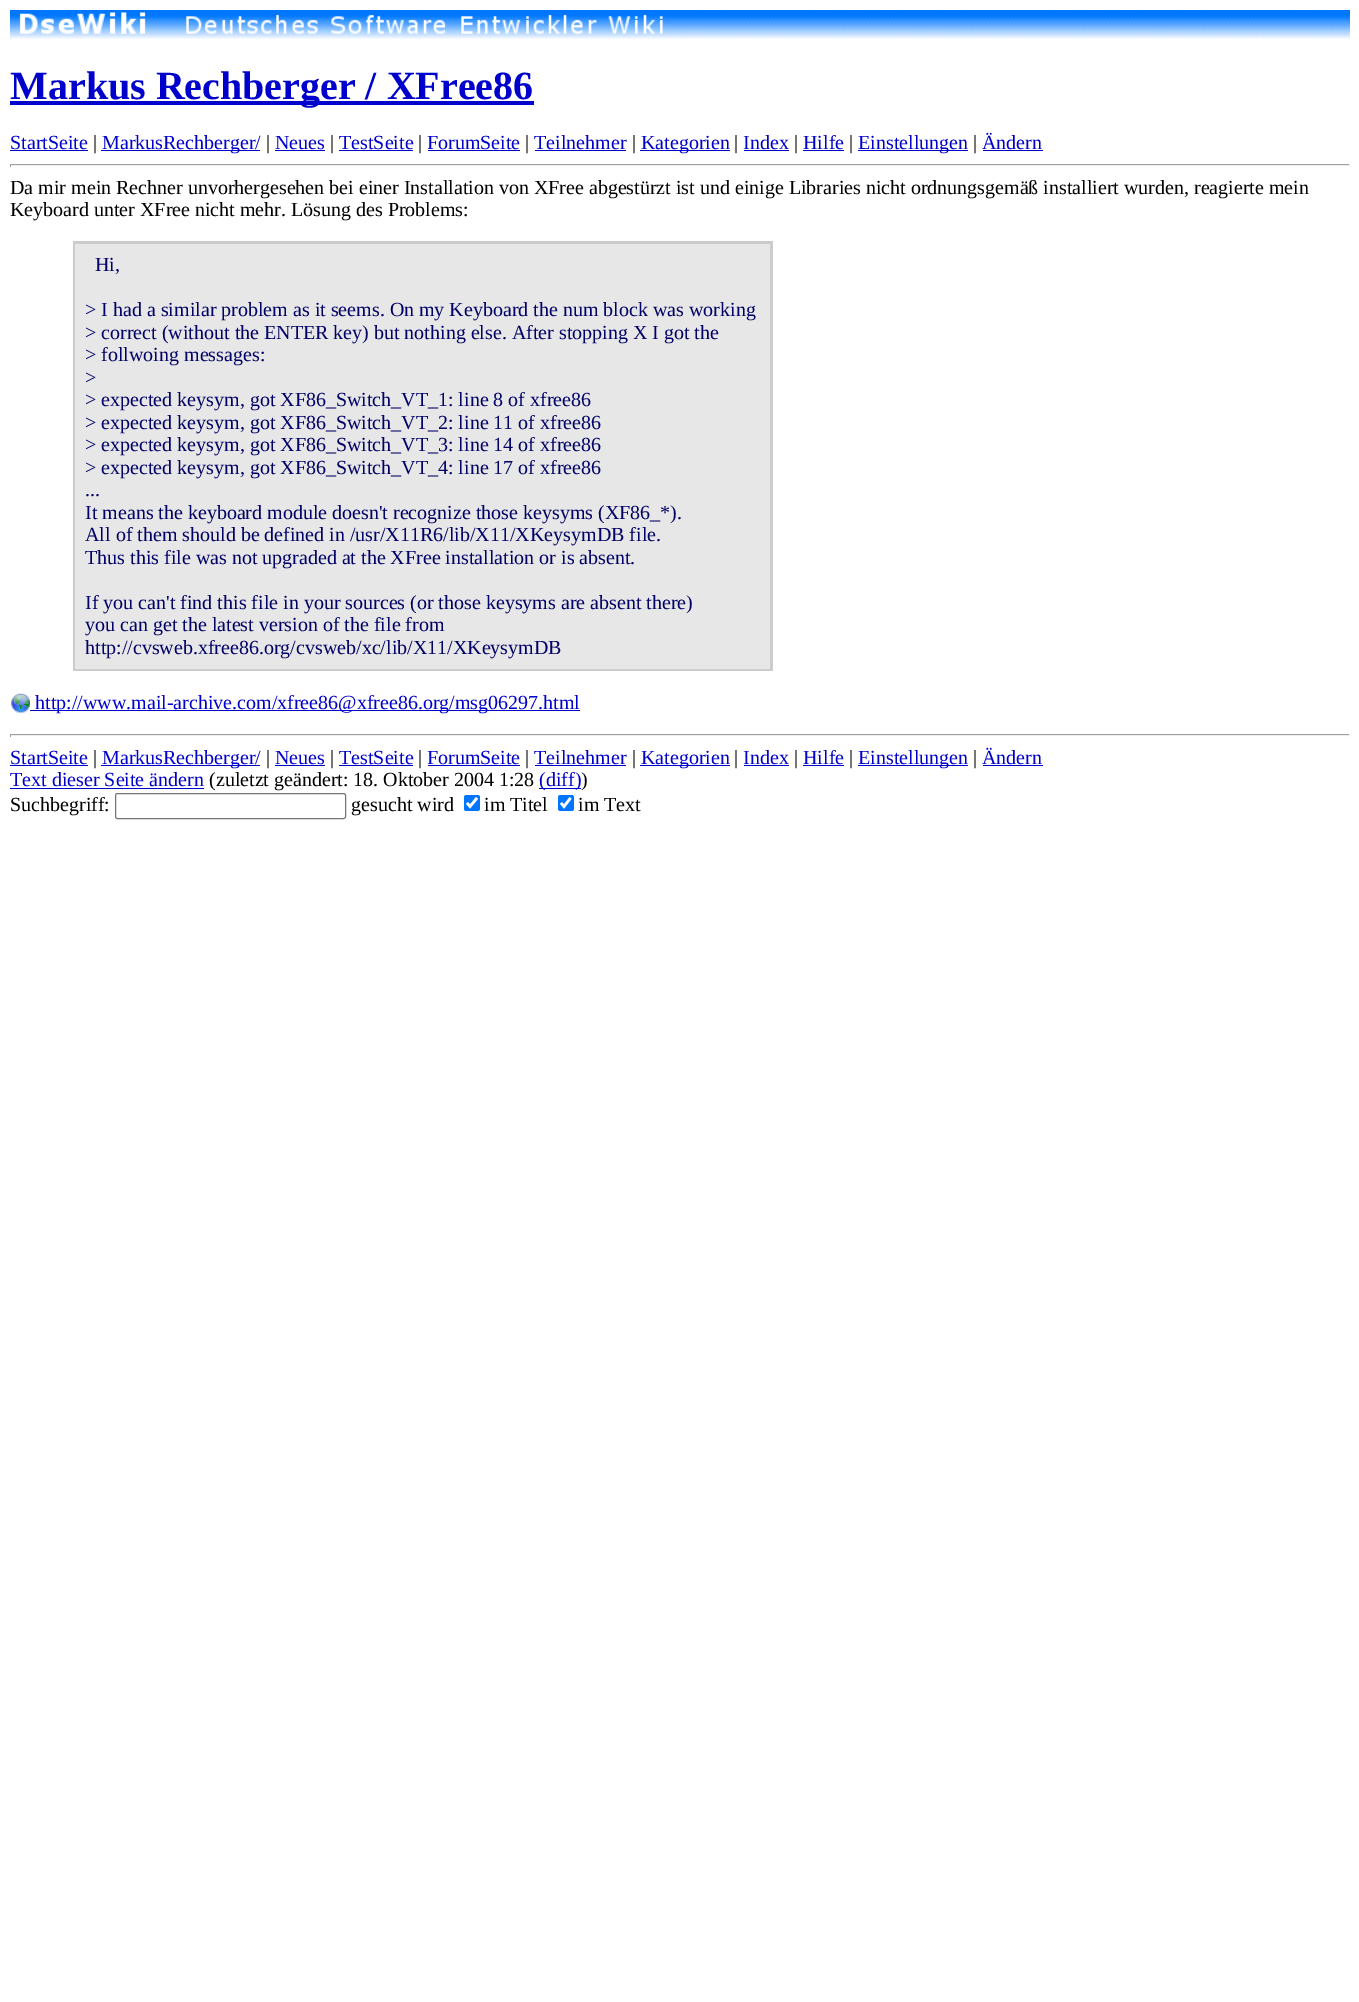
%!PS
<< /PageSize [1359 2002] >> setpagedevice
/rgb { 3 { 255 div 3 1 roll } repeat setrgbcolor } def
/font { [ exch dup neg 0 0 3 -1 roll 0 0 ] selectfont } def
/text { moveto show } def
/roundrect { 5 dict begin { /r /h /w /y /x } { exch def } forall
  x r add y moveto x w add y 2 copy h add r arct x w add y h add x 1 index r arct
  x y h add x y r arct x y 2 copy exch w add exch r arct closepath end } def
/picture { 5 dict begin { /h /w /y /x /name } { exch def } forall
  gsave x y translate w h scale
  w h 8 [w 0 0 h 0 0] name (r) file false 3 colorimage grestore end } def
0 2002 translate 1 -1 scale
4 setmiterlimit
255 255 255 rgb
0 0 1359 2002 rectfill
(img_01.rgb) 10 10 1340 29 picture
0 0 204 rgb
10 101 524 4 rectfill
10 150 78 1 rectfill
101 150 159 1 rectfill
275 150 50 1 rectfill
339 150 74 1 rectfill
428 150 92 1 rectfill
535 150 91 1 rectfill
640 150 90 1 rectfill
744 150 45 1 rectfill
803 150 41 1 rectfill
858 150 110 1 rectfill
983 150 60 1 rectfill
159 159 159 rgb
10 164 1340 1 rectfill
238 238 238 rgb
1349 164 1 3 rectfill
10 165 1340 1 rectfill
159 159 159 rgb
10 164 1 3 rectfill
204 204 204 rgb
73 241 700 430 rectfill
231 231 231 rgb
75 244 695 425 rectfill
(img_02.rgb) 11 693 19 20 picture
0 0 204 rgb
30 710 550 1 rectfill
159 159 159 rgb
10 734 1340 1 rectfill
238 238 238 rgb
1349 734 1 3 rectfill
10 735 1340 1 rectfill
159 159 159 rgb
10 734 1 3 rectfill
0 0 204 rgb
10 765 78 1 rectfill
101 765 159 1 rectfill
275 765 50 1 rectfill
339 765 74 1 rectfill
428 765 92 1 rectfill
535 765 91 1 rectfill
640 765 90 1 rectfill
744 765 45 1 rectfill
803 765 41 1 rectfill
858 765 110 1 rectfill
983 765 60 1 rectfill
10 788 194 1 rectfill
539 788 42 1 rectfill
118 118 118 rgb
115.5 793.5 230 25 2 roundrect stroke
0 117 255 rgb
464 795 16 16 2.5 roundrect fill
255 255 255 rgb
2.6 setlinewidth
467 803 moveto 3 3.5 rlineto 7 -8.5 rlineto stroke
0 117 255 rgb
558 795 16 16 2.5 roundrect fill
255 255 255 rgb
561 803 moveto 3 3.5 rlineto 6.5 -8.5 rlineto stroke
/LiberationSerif-Bold 40 font
0 0 204 rgb
(Markus Rechberger / XFree86) 10 99 text
/LiberationSerif-Regular 20 font
(StartSeite) 10 149 text
0 0 0 rgb
(|) 93 149 text
0 0 204 rgb
(MarkusRechberger/) 102 149 text
0 0 0 rgb
(|) 266 149 text
0 0 204 rgb
(Neues) 275 149 text
0 0 0 rgb
(|) 330 149 text
0 0 204 rgb
(TestSeite) 339 149 text
0 0 0 rgb
(|) 418 149 text
0 0 204 rgb
(ForumSeite) 427 149 text
0 0 0 rgb
(|) 525 149 text
0 0 204 rgb
(Teilnehmer) 534 149 text
0 0 0 rgb
(|) 632 149 text
0 0 204 rgb
(Kategorien) 641 149 text
0 0 0 rgb
(|) 734 149 text
0 0 204 rgb
(Index) 743 149 text
0 0 0 rgb
(|) 794 149 text
0 0 204 rgb
(Hilfe) 803 149 text
0 0 0 rgb
(|) 849 149 text
0 0 204 rgb
(Einstellungen) 858 149 text
0 0 0 rgb
(|) 973 149 text
0 0 204 rgb
(Ändern) 982 149 text
0 0 0 rgb
(Da mir mein Rechner unvorhergesehen bei einer Installation von XFree abgestürzt ist und einige Libraries nicht ordnungsgemäß installiert wurden, reagierte mein) 10 194 text
(Keyboard unter XFree nicht mehr. Lösung des Problems:) 10 216 text
0 0 102 rgb
(Hi,) 95 271 text
(> I had a similar problem as it seems. On my Keyboard the num block was working) 85 316 text
(> correct \(without the ENTER key\) but nothing else. After stopping X I got the) 85 339 text
(> follwoing messages:) 85 361 text
(>) 85 384 text
(> expected keysym, got XF86_Switch_VT_1: line 8 of xfree86) 85 406 text
(> expected keysym, got XF86_Switch_VT_2: line 11 of xfree86) 85 429 text
(> expected keysym, got XF86_Switch_VT_3: line 14 of xfree86) 85 451 text
(> expected keysym, got XF86_Switch_VT_4: line 17 of xfree86) 85 474 text
(...) 85 496 text
(It means the keyboard module doesn't recognize those keysyms \(XF86_*\).) 85 519 text
(All of them should be defined in /usr/X11R6/lib/X11/XKeysymDB file.) 85 541 text
(Thus this file was not upgraded at the XFree installation or is absent.) 85 564 text
(If you can't find this file in your sources \(or those keysyms are absent there\)) 85 609 text
(you can get the latest version of the file from) 85 631 text
(http://cvsweb.xfree86.org/cvsweb/xc/lib/X11/XKeysymDB) 85 654 text
0 0 204 rgb
(http://www.mail-archive.com/xfree86@xfree86.org/msg06297.html) 35 709 text
(StartSeite) 10 764 text
0 0 0 rgb
(|) 93 764 text
0 0 204 rgb
(MarkusRechberger/) 102 764 text
0 0 0 rgb
(|) 266 764 text
0 0 204 rgb
(Neues) 275 764 text
0 0 0 rgb
(|) 330 764 text
0 0 204 rgb
(TestSeite) 339 764 text
0 0 0 rgb
(|) 418 764 text
0 0 204 rgb
(ForumSeite) 427 764 text
0 0 0 rgb
(|) 525 764 text
0 0 204 rgb
(Teilnehmer) 534 764 text
0 0 0 rgb
(|) 632 764 text
0 0 204 rgb
(Kategorien) 641 764 text
0 0 0 rgb
(|) 734 764 text
0 0 204 rgb
(Index) 743 764 text
0 0 0 rgb
(|) 794 764 text
0 0 204 rgb
(Hilfe) 803 764 text
0 0 0 rgb
(|) 849 764 text
0 0 204 rgb
(Einstellungen) 858 764 text
0 0 0 rgb
(|) 973 764 text
0 0 204 rgb
(Ändern) 982 764 text
(Text dieser Seite ändern) 10 786 text
0 0 0 rgb
(\(zuletzt geändert: 18. Oktober 2004 1:28) 209 786 text
0 0 204 rgb
(\(diff\)) 539 786 text
0 0 0 rgb
(\)) 581 786 text
(Suchbegriff:) 10 811 text
(gesucht wird) 351 811 text
(im Titel) 484 811 text
(im Text) 578 811 text
showpage
